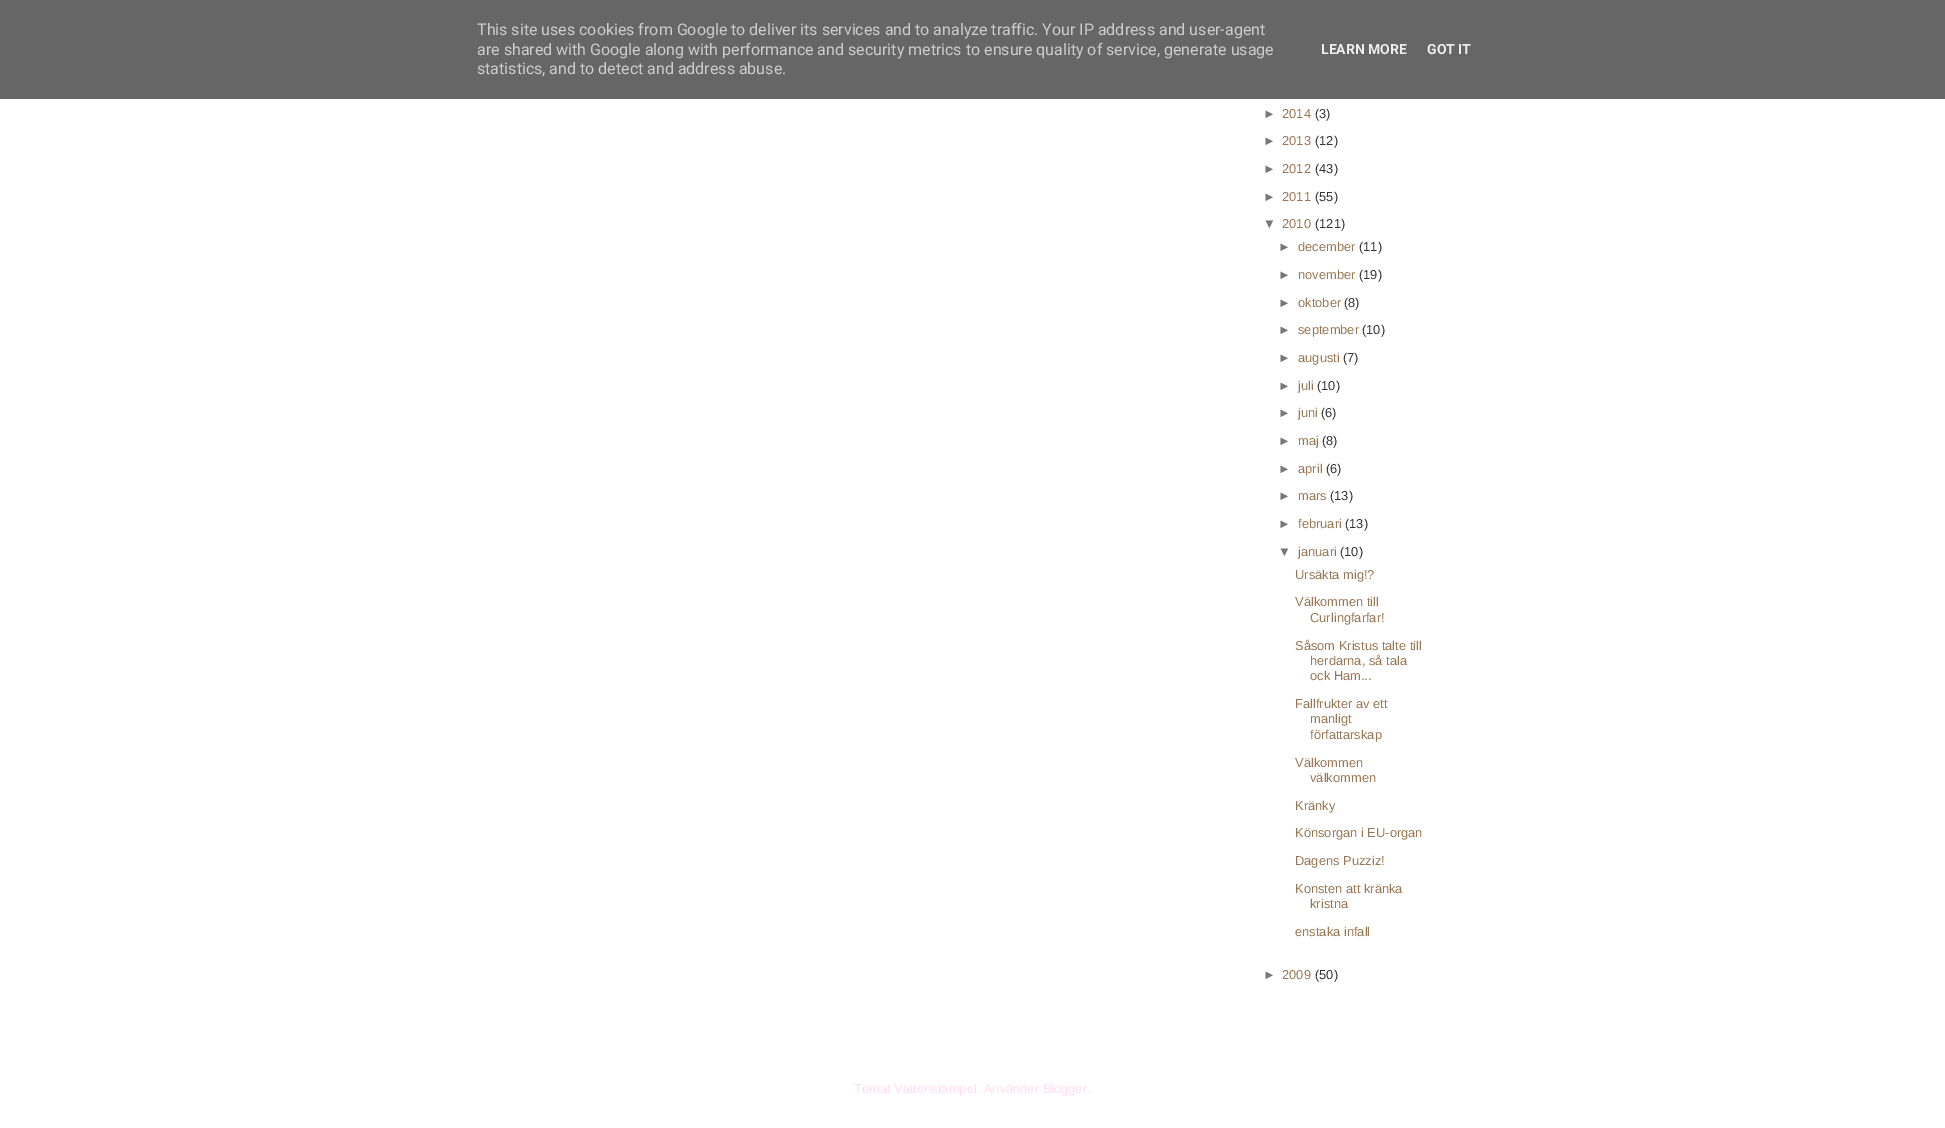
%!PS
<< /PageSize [1945 1128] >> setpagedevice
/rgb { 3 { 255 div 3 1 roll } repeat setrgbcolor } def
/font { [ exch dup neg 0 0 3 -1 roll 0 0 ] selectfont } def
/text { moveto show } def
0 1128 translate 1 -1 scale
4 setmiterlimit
255 255 255 rgb
0 0 1945 1128 rectfill
102 102 102 rgb
0 0 1945 99 rectfill
/Roboto-Regular 16 font
204 204 204 rgb
(This site uses cookies from Google to deliver its services and to analyze traffic. Your IP address and user-agent) 477 35 text
(are shared with Google along with performance and security metrics to ensure quality of service, generate usage) 477 55 text
(statistics, and to detect and address abuse.) 477 74 text
/Roboto-Bold 14 font
238 238 238 rgb
(LEARN MORE) 1321 54 text
(GOT IT) 1427 54 text
/LiberationSans-Regular 12.9 font
119 119 119 rgb
(►) 1263 118 text
153 119 85 rgb
(2014) 1282 118 text
51 51 51 rgb
(\(3\)) 1315 118 text
119 119 119 rgb
(►) 1263 145 text
153 119 85 rgb
(2013) 1282 145 text
51 51 51 rgb
(\(12\)) 1315 145 text
119 119 119 rgb
(►) 1263 173 text
153 119 85 rgb
(2012) 1282 173 text
51 51 51 rgb
(\(43\)) 1315 173 text
119 119 119 rgb
(►) 1263 201 text
153 119 85 rgb
(2011) 1282 201 text
51 51 51 rgb
(\(55\)) 1315 201 text
119 119 119 rgb
(▼) 1263 228 text
153 119 85 rgb
(2010) 1282 228 text
51 51 51 rgb
(\(121\)) 1315 228 text
119 119 119 rgb
(►) 1278 251 text
153 119 85 rgb
(december) 1298 251 text
51 51 51 rgb
(\(11\)) 1359 251 text
119 119 119 rgb
(►) 1278 279 text
153 119 85 rgb
(november) 1298 279 text
51 51 51 rgb
(\(19\)) 1359 279 text
119 119 119 rgb
(►) 1278 307 text
153 119 85 rgb
(oktober) 1298 307 text
51 51 51 rgb
(\(8\)) 1344 307 text
119 119 119 rgb
(►) 1278 334 text
153 119 85 rgb
(september) 1298 334 text
51 51 51 rgb
(\(10\)) 1362 334 text
119 119 119 rgb
(►) 1278 362 text
153 119 85 rgb
(augusti) 1298 362 text
51 51 51 rgb
(\(7\)) 1343 362 text
119 119 119 rgb
(►) 1278 390 text
153 119 85 rgb
(juli) 1298 390 text
51 51 51 rgb
(\(10\)) 1317 390 text
119 119 119 rgb
(►) 1278 417 text
153 119 85 rgb
(juni) 1298 417 text
51 51 51 rgb
(\(6\)) 1321 417 text
119 119 119 rgb
(►) 1278 445 text
153 119 85 rgb
(maj) 1298 445 text
51 51 51 rgb
(\(8\)) 1322 445 text
119 119 119 rgb
(►) 1278 473 text
153 119 85 rgb
(april) 1298 473 text
51 51 51 rgb
(\(6\)) 1326 473 text
119 119 119 rgb
(►) 1278 500 text
153 119 85 rgb
(mars) 1298 500 text
51 51 51 rgb
(\(13\)) 1330 500 text
119 119 119 rgb
(►) 1278 528 text
153 119 85 rgb
(februari) 1298 528 text
51 51 51 rgb
(\(13\)) 1345 528 text
119 119 119 rgb
(▼) 1278 556 text
153 119 85 rgb
(januari) 1298 556 text
51 51 51 rgb
(\(10\)) 1340 556 text
153 119 85 rgb
(Ursäkta mig!?) 1295 579 text
(Välkommen till) 1295 606 text
(Curlingfarfar!) 1310 622 text
(Såsom Kristus talte till) 1295 650 text
(herdarna, så tala) 1310 665 text
(ock Ham...) 1310 680 text
(Fallfrukter av ett) 1295 708 text
(manligt) 1310 723 text
(författarskap) 1310 739 text
(Välkommen) 1295 767 text
(välkommen) 1310 782 text
(Kränky) 1295 810 text
(Könsorgan i EU-organ) 1295 837 text
(Dagens Puzziz!) 1295 865 text
(Konsten att kränka) 1295 893 text
(kristna) 1310 908 text
(enstaka infall) 1295 936 text
119 119 119 rgb
(►) 1263 979 text
153 119 85 rgb
(2009) 1282 979 text
51 51 51 rgb
(\(50\)) 1315 979 text
255 223 239 rgb
(Temat Vattenstämpel. Använder Blogger.) 854 1093 text
showpage
